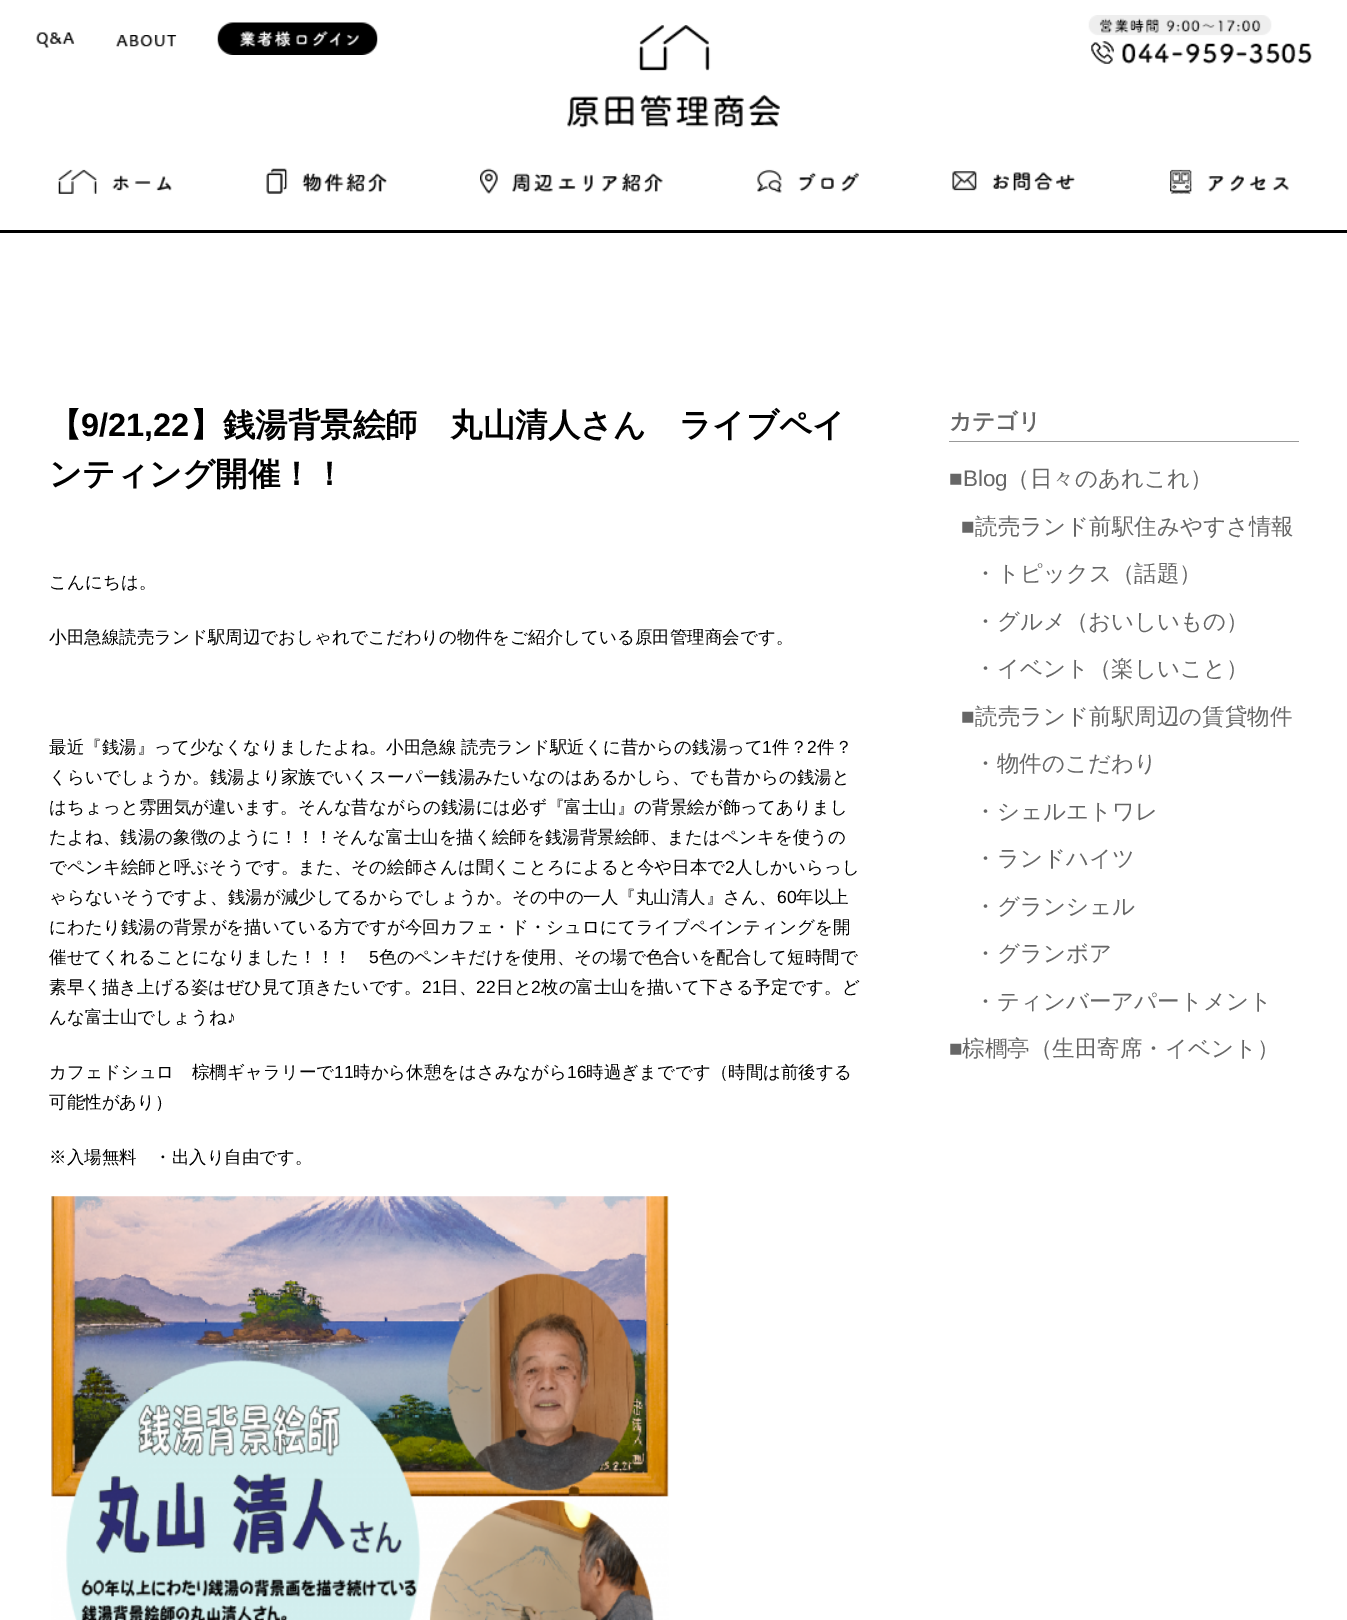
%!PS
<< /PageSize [1347 1620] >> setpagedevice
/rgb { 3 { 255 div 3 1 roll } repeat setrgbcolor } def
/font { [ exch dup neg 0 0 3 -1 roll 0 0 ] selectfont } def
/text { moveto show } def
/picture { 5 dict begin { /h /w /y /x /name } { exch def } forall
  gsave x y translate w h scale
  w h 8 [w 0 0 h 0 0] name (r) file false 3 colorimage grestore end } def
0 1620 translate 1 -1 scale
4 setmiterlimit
255 255 255 rgb
0 0 1347 1620 rectfill
(img_01.rgb) 36 32 39 16 picture
(img_02.rgb) 116 35 61 12 picture
(img_03.rgb) 217 22 161 33 picture
(img_04.rgb) 1088 15 224 49 picture
(img_05.rgb) 567 25 213 103 picture
(img_06.rgb) 58 169 114 25 picture
(img_07.rgb) 266 168 121 26 picture
(img_08.rgb) 480 168 183 26 picture
(img_09.rgb) 757 169 102 24 picture
(img_10.rgb) 952 171 123 21 picture
(img_11.rgb) 1170 169 119 25 picture
0 0 0 rgb
0 230 1347 3 rectfill
(img_12.rgb) 51 1196 618 424 picture
153 153 153 rgb
949 441 350 1 rectfill
/WenQuanYiZenHei-Bold 32.5 font
0 0 0 rgb
(【) 49 436 text
/LiberationSans-Bold 32.5 font
(9/21,22) 81 436 text
/WenQuanYiZenHei-Bold 32.5 font
(】銭湯背景絵師　丸山清人さん　ライブペイ) 190 436 text
(ンティング開催！！) 49 485 text
/WenQuanYiZenHei-Medium 17.5 font
(こんにちは。) 49 588 text
(小田急線読売ランド駅周辺でおしゃれでこだわりの物件をご紹介している原田管理商会です。) 49 643 text
(最近『銭湯』って少なくなりましたよね。小田急線 読売ランド駅近くに昔からの銭湯って) 49 753 text
/LiberationSans-Regular 17.5 font
(1) 762 753 text
/WenQuanYiZenHei-Medium 17.5 font
(件？) 772 753 text
/LiberationSans-Regular 17.5 font
(2) 807 753 text
/WenQuanYiZenHei-Medium 17.5 font
(件？) 817 753 text
(くらいでしょうか。銭湯より家族でいくスーパー銭湯みたいなのはあるかしら、でも昔からの銭湯と) 49 783 text
(はちょっと雰囲気が違います。そんな昔ながらの銭湯には必ず『富士山』の背景絵が飾ってありまし) 49 813 text
(たよね、銭湯の象徴のように！！！そんな富士山を描く絵師を銭湯背景絵師、またはペンキを使うの) 49 843 text
(でペンキ絵師と呼ぶそうです。また、その絵師さんは聞くことろによると今や日本で) 49 873 text
/LiberationSans-Regular 17.5 font
(2) 725 873 text
/WenQuanYiZenHei-Medium 17.5 font
(人しかいらっし) 735 873 text
(ゃらないそうですよ、銭湯が減少してるからでしょうか。その中の一人『丸山清人』さん、) 49 903 text
/LiberationSans-Regular 17.5 font
(60) 777 903 text
/WenQuanYiZenHei-Medium 17.5 font
(年以上) 796 903 text
(にわたり銭湯の背景がを描いている方ですが今回カフェ・ド・シュロにてライブペインティングを開) 49 933 text
(催せてくれることになりました！！！) 49 963 text
/LiberationSans-Regular 17.5 font
(5) 369 963 text
/WenQuanYiZenHei-Medium 17.5 font
(色のペンキだけを使用、その場で色合いを配合して短時間で) 379 963 text
(素早く描き上げる姿はぜひ見て頂きたいです。) 49 993 text
/LiberationSans-Regular 17.5 font
(21) 422 993 text
/WenQuanYiZenHei-Medium 17.5 font
(日、) 441 993 text
/LiberationSans-Regular 17.5 font
(22) 476 993 text
/WenQuanYiZenHei-Medium 17.5 font
(日と) 496 993 text
/LiberationSans-Regular 17.5 font
(2) 531 993 text
/WenQuanYiZenHei-Medium 17.5 font
(枚の富士山を描いて下さる予定です。ど) 541 993 text
(んな富士山でしょうね) 49 1023 text
/LiberationSans-Regular 17.5 font
(♪) 227 1023 text
/WenQuanYiZenHei-Medium 17.5 font
(カフェドシュロ　棕櫚ギャラリーで) 49 1078 text
/LiberationSans-Regular 17.5 font
(11) 334 1078 text
/WenQuanYiZenHei-Medium 17.5 font
(時から休憩をはさみながら) 353 1078 text
/LiberationSans-Regular 17.5 font
(16) 567 1078 text
/WenQuanYiZenHei-Medium 17.5 font
(時過ぎまでです（時間は前後する) 586 1078 text
(可能性があり）) 49 1108 text
(※入場無料　・出入り自由です。) 49 1163 text
/WenQuanYiZenHei-Bold 22.5 font
102 102 102 rgb
(カテゴリ) 949 429 text
/LiberationSans-Regular 22.5 font
(■Blog) 949 486 text
/WenQuanYiZenHei-Medium 22.5 font
(（日々のあれこれ）) 1007 486 text
/LiberationSans-Regular 22.5 font
(■) 961 534 text
/WenQuanYiZenHei-Medium 22.5 font
(読売ランド前駅住みやすさ情報) 975 534 text
(・トピックス（話題）) 974 581 text
(・グルメ（おいしいもの）) 974 629 text
(・イベント（楽しいこと）) 974 676 text
/LiberationSans-Regular 22.5 font
(■) 961 724 text
/WenQuanYiZenHei-Medium 22.5 font
(読売ランド前駅周辺の賃貸物件) 975 724 text
(・物件のこだわり) 974 771 text
(・シェルエトワレ) 974 819 text
(・ランドハイツ) 974 866 text
(・グランシェル) 974 914 text
(・グランボア) 974 961 text
(・ティンバーアパートメント) 974 1009 text
/LiberationSans-Regular 22.5 font
(■) 949 1056 text
/WenQuanYiZenHei-Medium 22.5 font
(棕櫚亭（生田寄席・イベント）) 962 1056 text
showpage
